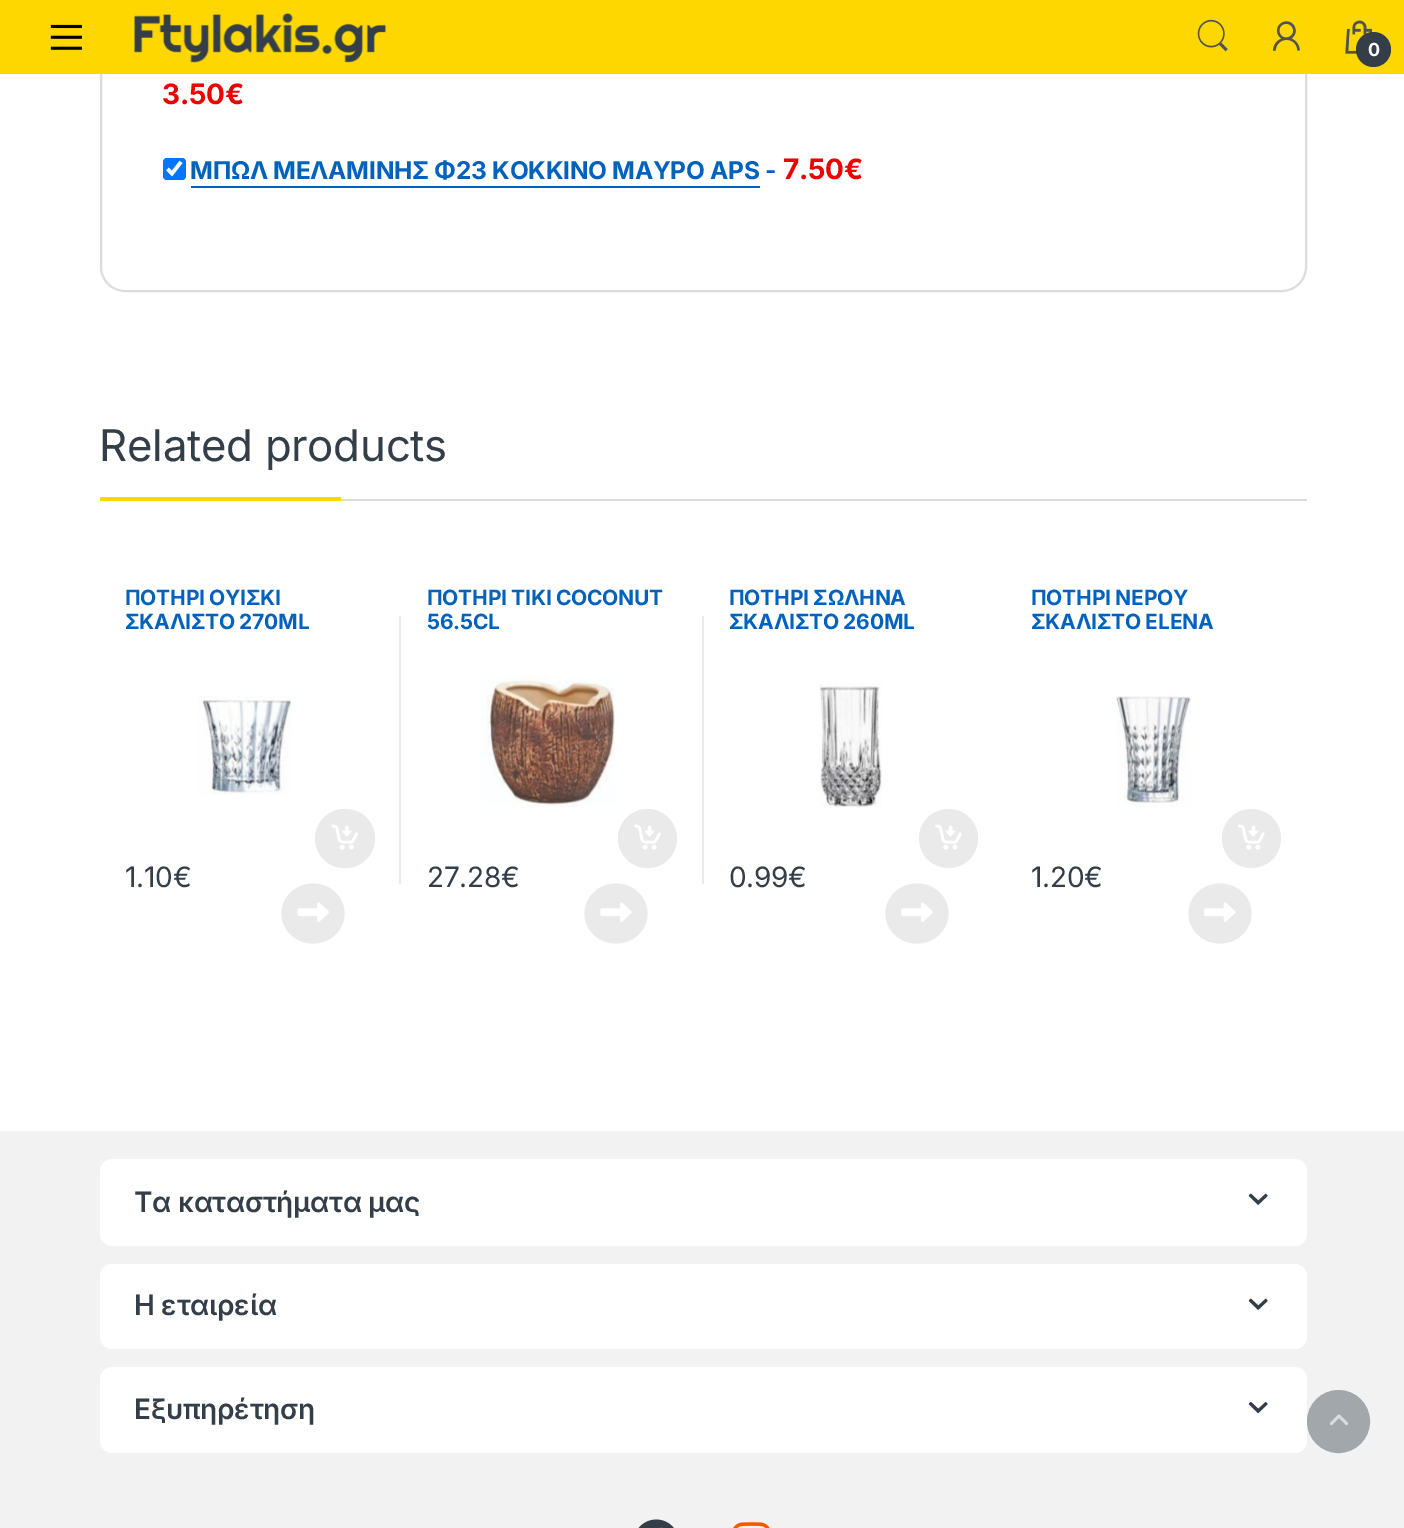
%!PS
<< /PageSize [1404 1528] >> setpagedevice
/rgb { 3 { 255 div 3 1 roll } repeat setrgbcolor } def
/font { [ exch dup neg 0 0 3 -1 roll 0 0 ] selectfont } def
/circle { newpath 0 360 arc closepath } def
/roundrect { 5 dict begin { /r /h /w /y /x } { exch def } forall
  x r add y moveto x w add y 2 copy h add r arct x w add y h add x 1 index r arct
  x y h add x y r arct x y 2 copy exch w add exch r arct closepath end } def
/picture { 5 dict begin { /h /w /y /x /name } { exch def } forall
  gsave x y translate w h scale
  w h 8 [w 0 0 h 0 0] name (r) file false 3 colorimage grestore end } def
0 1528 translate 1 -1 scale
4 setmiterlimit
255 255 255 rgb
0 0 1404 1528 rectfill
221 221 221 rgb
2 setlinewidth
101 -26 1205 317 24 roundrect stroke
254 215 0 rgb
0 0 1404 74 rectfill
(img_01.rgb) 50 24 32 26 picture
(img_02.rgb) 134 13 252 50 picture
(img_03.rgb) 1197 19 31 33 picture
(img_04.rgb) 1272 21 28 30 picture
(img_05.rgb) 1345 20 28 34 picture
51 62 72 rgb
1373.5 49.5 17.5 circle fill
0 117 255 rgb
163 158 23 22 4 roundrect fill
255 255 255 rgb
3.6 setlinewidth
167.5 169 moveto 4.5 4.5 rlineto 9 -11.5 rlineto stroke
0 98 189 rgb
191 186 569 2 rectfill
221 221 221 rgb
341 499 966 2 rectfill
254 215 0 rgb
100 497 241 4 rectfill
(img_06.rgb) 198 696 94 99 picture
234 234 234 rgb
315 809 60 59 29.5 roundrect fill
(img_07.rgb) 331 824 27 26 picture
313 883.5 moveto 17.5 0 31.5 13.5 31.5 30 rcurveto 0 16.5 -14 30 -31.5 30 rcurveto -17.5 0 -31.5 -13.5 -31.5 -30 rcurveto 0 -16.5 14 -30 31.5 -30 rcurveto closepath fill
(img_08.rgb) 297 902 32 20 picture
399 616 2 268 rectfill
(img_09.rgb) 481 676 134 132 picture
647.5 838.5 29.5 circle fill
(img_10.rgb) 634 824 27 26 picture
616 883.5 moveto 17.5 0 31.5 13.5 31.5 30 rcurveto 0 16.5 -14 30 -31.5 30 rcurveto -17.5 0 -31.5 -13.5 -31.5 -30 rcurveto 0 -16.5 14 -30 31.5 -30 rcurveto closepath fill
(img_11.rgb) 600 902 32 20 picture
702 616 2 268 rectfill
(img_12.rgb) 819 683 63 125 picture
948.5 838.5 29.5 circle fill
(img_10.rgb) 935 824 27 26 picture
917 883.5 moveto 17.5 0 31.5 13.5 31.5 30 rcurveto 0 16.5 -14 30 -31.5 30 rcurveto -17.5 0 -31.5 -13.5 -31.5 -30 rcurveto 0 -16.5 14 -30 31.5 -30 rcurveto closepath fill
(img_11.rgb) 901 902 32 20 picture
(img_13.rgb) 1116 695 75 112 picture
1251.5 838.5 29.5 circle fill
(img_14.rgb) 1238 824 27 26 picture
1220 883.5 moveto 17.5 0 31.5 13.5 31.5 30 rcurveto 0 16.5 -14 30 -31.5 30 rcurveto -17.5 0 -31.5 -13.5 -31.5 -30 rcurveto 0 -16.5 14 -30 31.5 -30 rcurveto closepath fill
(img_15.rgb) 1204 902 32 20 picture
242 242 242 rgb
0 1131 1404 397 rectfill
255 255 255 rgb
100 1159 1207 87 12 roundrect fill
(img_16.rgb) 1248 1193 20 12 picture
100 1264 1207 85 12 roundrect fill
(img_16.rgb) 1248 1298 20 12 picture
100 1367 1207 86 12 roundrect fill
(img_17.rgb) 1248 1401 20 13 picture
(img_18.rgb) 638 1519 36 9 picture
(img_19.rgb) 733 1522 37 6 picture
162 167 172 rgb
1338.5 1421.5 30.5 circle gsave fill grestore
2 setlinewidth
stroke
(img_20.rgb) 1329 1414 20 12 picture
/Inter-Bold 18 font
255 255 255 rgb
1368 56 moveto -0.25 0 (0) ashow
/Inter-Bold 28 font
238 0 0 rgb
162 104 moveto -0.25 0 (3.50€) ashow
/Inter-Bold 24.5 font
0 98 189 rgb
190 179 moveto -0.25 0 (ΜΠΩΛ ΜΕΛΑΜΙΝΗΣ Φ23 KOKKINO ΜΑΥΡΟ APS -) ashow
/Inter-Bold 28 font
238 0 0 rgb
783 179 moveto -0.25 0 (7.50€) ashow
/Inter-Regular 43.75 font
51 62 72 rgb
99 461 moveto -0.25 0 (Related products) ashow
/Inter-Bold 21 font
0 98 189 rgb
125 605 moveto -0.25 0 (ΠΟΤΗΡΙ ΟΥΙΣΚΙ) ashow
125 629 moveto -0.25 0 (ΣΚΑΛΙΣΤΟ 270ML) ashow
/Inter-Regular 28 font
51 62 72 rgb
125 887 moveto -0.25 0 (1.10€) ashow
/Inter-Bold 21 font
0 98 189 rgb
427 605 moveto -0.25 0 (ΠΟΤΗΡΙ ΤΙΚΙ COCONUT) ashow
427 629 moveto -0.25 0 (56.5CL) ashow
/Inter-Regular 28 font
51 62 72 rgb
427 887 moveto -0.25 0 (27.28€) ashow
/Inter-Bold 21 font
0 98 189 rgb
729 605 moveto -0.25 0 (ΠΟΤΗΡΙ ΣΩΛΗΝΑ) ashow
729 629 moveto -0.25 0 (ΣΚΑΛΙΣΤΟ 260ML) ashow
/Inter-Regular 28 font
51 62 72 rgb
729 887 moveto -0.25 0 (0.99€) ashow
/Inter-Bold 21 font
0 98 189 rgb
1031 605 moveto -0.25 0 (ΠΟΤΗΡΙ ΝΕΡΟΥ) ashow
1031 629 moveto -0.25 0 (ΣΚΑΛΙΣΤΟ ELENA) ashow
/Inter-Regular 28 font
51 62 72 rgb
1031 887 moveto -0.25 0 (1.20€) ashow
/Inter-SemiBold 28 font
134 1212 moveto -0.25 0 (Τα καταστήματα μας) ashow
134 1315 moveto -0.25 0 (Η εταιρεία) ashow
134 1419 moveto -0.25 0 (Εξυπηρέτηση) ashow
showpage
